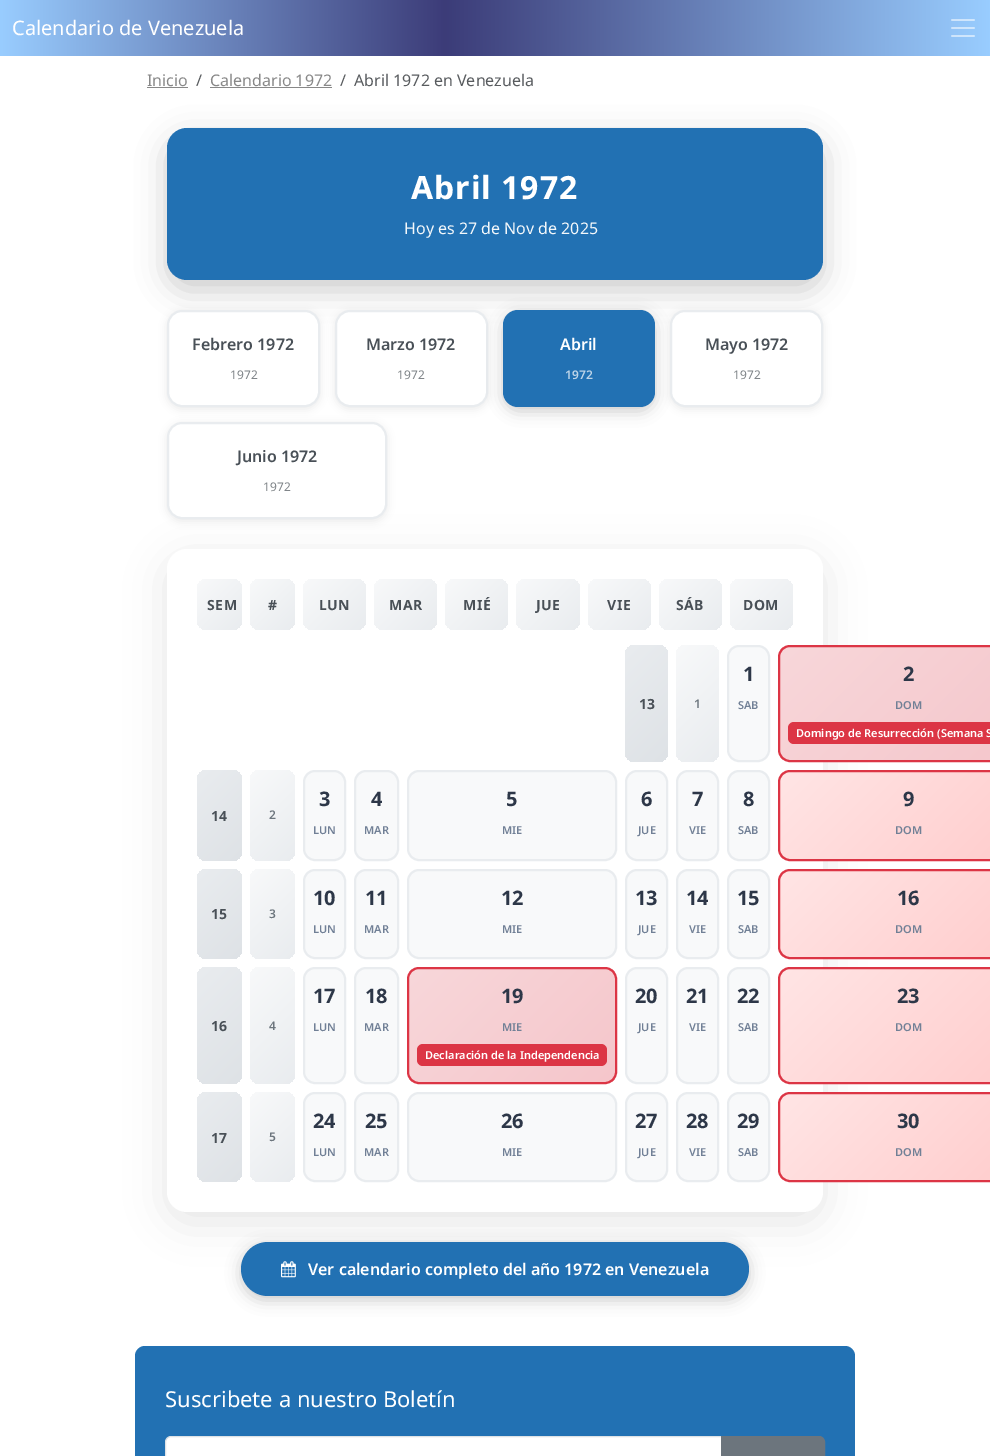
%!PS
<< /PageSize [990 1456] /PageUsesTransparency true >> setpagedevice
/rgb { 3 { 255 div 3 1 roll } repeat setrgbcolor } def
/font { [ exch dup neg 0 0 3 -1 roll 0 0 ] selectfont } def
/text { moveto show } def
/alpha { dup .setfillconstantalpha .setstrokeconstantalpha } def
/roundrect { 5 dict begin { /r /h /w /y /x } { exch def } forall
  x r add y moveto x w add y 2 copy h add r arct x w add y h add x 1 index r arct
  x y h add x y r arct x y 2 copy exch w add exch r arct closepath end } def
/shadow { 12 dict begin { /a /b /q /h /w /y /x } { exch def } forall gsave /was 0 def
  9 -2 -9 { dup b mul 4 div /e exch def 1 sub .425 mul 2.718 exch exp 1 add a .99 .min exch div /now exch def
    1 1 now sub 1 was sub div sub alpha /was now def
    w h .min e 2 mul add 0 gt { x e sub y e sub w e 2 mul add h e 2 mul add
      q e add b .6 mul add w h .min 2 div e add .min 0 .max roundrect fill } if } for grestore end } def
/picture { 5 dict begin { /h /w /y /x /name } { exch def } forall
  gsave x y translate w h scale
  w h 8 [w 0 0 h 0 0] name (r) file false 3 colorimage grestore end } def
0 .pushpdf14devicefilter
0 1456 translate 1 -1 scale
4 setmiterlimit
255 255 255 rgb
0 0 990 1456 rectfill
gsave 0 0 moveto 990 0 rlineto 0 56 rlineto -990 0 rlineto closepath clip newpath
<< /ShadingType 2 /ColorSpace /DeviceRGB /Coords [0 28 990 28] /Extend [true true] /Function << /FunctionType 3 /Domain [0 1] /Functions [<< /FunctionType 2 /Domain [0 1] /C0 [0.6 0.804 1] /C1 [0.235 0.235 0.471] /N 1 >> << /FunctionType 2 /Domain [0 1] /C0 [0.235 0.235 0.471] /C1 [0.6 0.804 1] /N 1 >>] /Bounds [0.45] /Encode [0 1 0 1] >> >> shfill grestore
(img_01.rgb) 951 19 24 18 picture
136 136 136 rgb
147 87 41 1 rectfill
210 87 122 1 rectfill
0 0 0 rgb
167 138 656 152 20 15 0.2 shadow
34 113 179 rgb
167 128 656 152 20 roundrect fill
0 0 0 rgb
167 312 153 97 15 4 0.08 shadow
255 255 255 rgb
168 311 151 95 14 roundrect gsave fill grestore
233 236 239 rgb
2 setlinewidth
stroke
0 0 0 rgb
335 312 153 97 15 4 0.08 shadow
255 255 255 rgb
336 311 151 95 14 roundrect gsave fill grestore
233 236 239 rgb
stroke
0 0 0 rgb
503 314 152 97 15 7.5 0.2 shadow
34 113 179 rgb
503 310 152 97 15 roundrect fill
0 0 0 rgb
670 312 153 97 15 4 0.08 shadow
255 255 255 rgb
671 311 151 95 14 roundrect gsave fill grestore
233 236 239 rgb
stroke
0 0 0 rgb
167 424 220 97 15 4 0.08 shadow
167 559 656 663 20 20 0.1 shadow
255 255 255 rgb
168 423 218 95 14 roundrect gsave fill grestore
233 236 239 rgb
stroke
255 255 255 rgb
167 549 656 663 20 roundrect fill
gsave 197 579 45 51 10 roundrect clip newpath
<< /ShadingType 2 /ColorSpace /DeviceRGB /Coords [196 581 244 629] /Extend [true true] /Function << /FunctionType 2 /Domain [0 1] /C0 [0.973 0.976 0.98] /C1 [0.914 0.925 0.937] /N 1 >> >> shfill grestore
gsave 250 579 45 51 10 roundrect clip newpath
<< /ShadingType 2 /ColorSpace /DeviceRGB /Coords [249 581 297 629] /Extend [true true] /Function << /FunctionType 2 /Domain [0 1] /C0 [0.973 0.976 0.98] /C1 [0.914 0.925 0.937] /N 1 >> >> shfill grestore
gsave 303 579 63 51 10 roundrect clip newpath
<< /ShadingType 2 /ColorSpace /DeviceRGB /Coords [306 576 363 633] /Extend [true true] /Function << /FunctionType 2 /Domain [0 1] /C0 [0.973 0.976 0.98] /C1 [0.914 0.925 0.937] /N 1 >> >> shfill grestore
gsave 374 579 63 51 10 roundrect clip newpath
<< /ShadingType 2 /ColorSpace /DeviceRGB /Coords [377 576 434 633] /Extend [true true] /Function << /FunctionType 2 /Domain [0 1] /C0 [0.973 0.976 0.98] /C1 [0.914 0.925 0.937] /N 1 >> >> shfill grestore
gsave 445 579 63 51 10 roundrect clip newpath
<< /ShadingType 2 /ColorSpace /DeviceRGB /Coords [448 576 505 633] /Extend [true true] /Function << /FunctionType 2 /Domain [0 1] /C0 [0.973 0.976 0.98] /C1 [0.914 0.925 0.937] /N 1 >> >> shfill grestore
gsave 516 579 64 51 10 roundrect clip newpath
<< /ShadingType 2 /ColorSpace /DeviceRGB /Coords [519 576 577 633] /Extend [true true] /Function << /FunctionType 2 /Domain [0 1] /C0 [0.973 0.976 0.98] /C1 [0.914 0.925 0.937] /N 1 >> >> shfill grestore
gsave 588 579 63 51 10 roundrect clip newpath
<< /ShadingType 2 /ColorSpace /DeviceRGB /Coords [591 576 648 633] /Extend [true true] /Function << /FunctionType 2 /Domain [0 1] /C0 [0.973 0.976 0.98] /C1 [0.914 0.925 0.937] /N 1 >> >> shfill grestore
gsave 659 579 63 51 10 roundrect clip newpath
<< /ShadingType 2 /ColorSpace /DeviceRGB /Coords [662 576 719 633] /Extend [true true] /Function << /FunctionType 2 /Domain [0 1] /C0 [0.973 0.976 0.98] /C1 [0.914 0.925 0.937] /N 1 >> >> shfill grestore
gsave 730 579 63 51 10 roundrect clip newpath
<< /ShadingType 2 /ColorSpace /DeviceRGB /Coords [733 576 790 633] /Extend [true true] /Function << /FunctionType 2 /Domain [0 1] /C0 [0.973 0.976 0.98] /C1 [0.914 0.925 0.937] /N 1 >> >> shfill grestore
gsave 625 645 43 117 10 roundrect clip newpath
<< /ShadingType 2 /ColorSpace /DeviceRGB /Coords [607 664 687 744] /Extend [true true] /Function << /FunctionType 2 /Domain [0 1] /C0 [0.914 0.925 0.937] /C1 [0.871 0.886 0.902] /N 1 >> >> shfill grestore
gsave 676 645 43 117 10 roundrect clip newpath
<< /ShadingType 2 /ColorSpace /DeviceRGB /Coords [658 664 738 744] /Extend [true true] /Function << /FunctionType 2 /Domain [0 1] /C0 [0.973 0.976 0.98] /C1 [0.914 0.925 0.937] /N 1 >> >> shfill grestore
248 249 250 rgb
728 646 41 115 11 roundrect gsave fill grestore
233 236 239 rgb
stroke
gsave
778 645 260 117 12 roundrect clip newpath
gsave 780 647 moveto 210 0 rlineto 0 113 rlineto -210 0 rlineto closepath clip newpath
<< /ShadingType 2 /ColorSpace /DeviceRGB /Coords [816 611 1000 796] /Extend [true true] /Function << /FunctionType 2 /Domain [0 1] /C0 [0.973 0.843 0.855] /C1 [0.961 0.776 0.796] /N 1 >> >> shfill grestore
grestore
220 53 69 rgb
779 646 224 115 11 roundrect stroke
788 722 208 22 6 roundrect fill
gsave 197 770 45 91 10 roundrect clip newpath
<< /ShadingType 2 /ColorSpace /DeviceRGB /Coords [186 782 254 850] /Extend [true true] /Function << /FunctionType 2 /Domain [0 1] /C0 [0.914 0.925 0.937] /C1 [0.871 0.886 0.902] /N 1 >> >> shfill grestore
gsave 250 770 45 91 10 roundrect clip newpath
<< /ShadingType 2 /ColorSpace /DeviceRGB /Coords [239 782 307 850] /Extend [true true] /Function << /FunctionType 2 /Domain [0 1] /C0 [0.973 0.976 0.98] /C1 [0.914 0.925 0.937] /N 1 >> >> shfill grestore
248 249 250 rgb
304 771 41 89 11 roundrect gsave fill grestore
233 236 239 rgb
stroke
248 249 250 rgb
355 771 43 89 11 roundrect gsave fill grestore
233 236 239 rgb
stroke
248 249 250 rgb
408 771 208 89 11 roundrect gsave fill grestore
233 236 239 rgb
stroke
248 249 250 rgb
626 771 41 89 11 roundrect gsave fill grestore
233 236 239 rgb
stroke
248 249 250 rgb
677 771 41 89 11 roundrect gsave fill grestore
233 236 239 rgb
stroke
248 249 250 rgb
728 771 41 89 11 roundrect gsave fill grestore
233 236 239 rgb
stroke
gsave
778 770 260 91 12 roundrect clip newpath
gsave 780 772 moveto 210 0 rlineto 0 87 rlineto -210 0 rlineto closepath clip newpath
<< /ShadingType 2 /ColorSpace /DeviceRGB /Coords [822 730 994 901] /Extend [true true] /Function << /FunctionType 2 /Domain [0 1] /C0 [1 0.898 0.898] /C1 [1 0.8 0.8] /N 1 >> >> shfill grestore
grestore
220 53 69 rgb
779 771 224 89 11 roundrect stroke
gsave 197 869 45 90 10 roundrect clip newpath
<< /ShadingType 2 /ColorSpace /DeviceRGB /Coords [186 880 253 948] /Extend [true true] /Function << /FunctionType 2 /Domain [0 1] /C0 [0.914 0.925 0.937] /C1 [0.871 0.886 0.902] /N 1 >> >> shfill grestore
gsave 250 869 45 90 10 roundrect clip newpath
<< /ShadingType 2 /ColorSpace /DeviceRGB /Coords [239 880 306 948] /Extend [true true] /Function << /FunctionType 2 /Domain [0 1] /C0 [0.973 0.976 0.98] /C1 [0.914 0.925 0.937] /N 1 >> >> shfill grestore
248 249 250 rgb
304 870 41 88 11 roundrect gsave fill grestore
233 236 239 rgb
stroke
248 249 250 rgb
355 870 43 88 11 roundrect gsave fill grestore
233 236 239 rgb
stroke
248 249 250 rgb
408 870 208 88 11 roundrect gsave fill grestore
233 236 239 rgb
stroke
248 249 250 rgb
626 870 41 88 11 roundrect gsave fill grestore
233 236 239 rgb
stroke
248 249 250 rgb
677 870 41 88 11 roundrect gsave fill grestore
233 236 239 rgb
stroke
248 249 250 rgb
728 870 41 88 11 roundrect gsave fill grestore
233 236 239 rgb
stroke
gsave
778 869 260 90 12 roundrect clip newpath
gsave 780 871 moveto 210 0 rlineto 0 86 rlineto -210 0 rlineto closepath clip newpath
<< /ShadingType 2 /ColorSpace /DeviceRGB /Coords [823 829 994 1000] /Extend [true true] /Function << /FunctionType 2 /Domain [0 1] /C0 [1 0.898 0.898] /C1 [1 0.8 0.8] /N 1 >> >> shfill grestore
grestore
220 53 69 rgb
779 870 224 88 11 roundrect stroke
gsave 197 967 45 117 10 roundrect clip newpath
<< /ShadingType 2 /ColorSpace /DeviceRGB /Coords [179 985 260 1066] /Extend [true true] /Function << /FunctionType 2 /Domain [0 1] /C0 [0.914 0.925 0.937] /C1 [0.871 0.886 0.902] /N 1 >> >> shfill grestore
gsave 250 967 45 117 10 roundrect clip newpath
<< /ShadingType 2 /ColorSpace /DeviceRGB /Coords [232 985 313 1066] /Extend [true true] /Function << /FunctionType 2 /Domain [0 1] /C0 [0.973 0.976 0.98] /C1 [0.914 0.925 0.937] /N 1 >> >> shfill grestore
248 249 250 rgb
304 968 41 115 11 roundrect gsave fill grestore
233 236 239 rgb
stroke
248 249 250 rgb
355 968 43 115 11 roundrect gsave fill grestore
233 236 239 rgb
stroke
gsave
407 967 210 117 12 roundrect clip newpath
gsave 409 969 moveto 206 0 rlineto 0 113 rlineto -206 0 rlineto closepath clip newpath
<< /ShadingType 2 /ColorSpace /DeviceRGB /Coords [432 946 592 1105] /Extend [true true] /Function << /FunctionType 2 /Domain [0 1] /C0 [0.973 0.843 0.855] /C1 [0.961 0.776 0.796] /N 1 >> >> shfill grestore
grestore
220 53 69 rgb
408 968 208 115 11 roundrect stroke
417 1044 190 22 6 roundrect fill
248 249 250 rgb
626 968 41 115 11 roundrect gsave fill grestore
233 236 239 rgb
stroke
248 249 250 rgb
677 968 41 115 11 roundrect gsave fill grestore
233 236 239 rgb
stroke
248 249 250 rgb
728 968 41 115 11 roundrect gsave fill grestore
233 236 239 rgb
stroke
gsave
778 967 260 117 12 roundrect clip newpath
gsave 780 969 moveto 210 0 rlineto 0 113 rlineto -210 0 rlineto closepath clip newpath
<< /ShadingType 2 /ColorSpace /DeviceRGB /Coords [816 933 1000 1118] /Extend [true true] /Function << /FunctionType 2 /Domain [0 1] /C0 [1 0.898 0.898] /C1 [1 0.8 0.8] /N 1 >> >> shfill grestore
grestore
220 53 69 rgb
779 968 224 115 11 roundrect stroke
gsave 197 1092 45 90 10 roundrect clip newpath
<< /ShadingType 2 /ColorSpace /DeviceRGB /Coords [186 1103 253 1171] /Extend [true true] /Function << /FunctionType 2 /Domain [0 1] /C0 [0.914 0.925 0.937] /C1 [0.871 0.886 0.902] /N 1 >> >> shfill grestore
gsave 250 1092 45 90 10 roundrect clip newpath
<< /ShadingType 2 /ColorSpace /DeviceRGB /Coords [239 1103 306 1171] /Extend [true true] /Function << /FunctionType 2 /Domain [0 1] /C0 [0.973 0.976 0.98] /C1 [0.914 0.925 0.937] /N 1 >> >> shfill grestore
248 249 250 rgb
304 1093 41 88 11 roundrect gsave fill grestore
233 236 239 rgb
stroke
248 249 250 rgb
355 1093 43 88 11 roundrect gsave fill grestore
233 236 239 rgb
stroke
248 249 250 rgb
408 1093 208 88 11 roundrect gsave fill grestore
233 236 239 rgb
stroke
248 249 250 rgb
626 1093 41 88 11 roundrect gsave fill grestore
233 236 239 rgb
stroke
248 249 250 rgb
677 1093 41 88 11 roundrect gsave fill grestore
233 236 239 rgb
stroke
248 249 250 rgb
728 1093 41 88 11 roundrect gsave fill grestore
233 236 239 rgb
stroke
gsave
778 1092 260 90 12 roundrect clip newpath
gsave 780 1094 moveto 210 0 rlineto 0 86 rlineto -210 0 rlineto closepath clip newpath
<< /ShadingType 2 /ColorSpace /DeviceRGB /Coords [823 1052 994 1223] /Extend [true true] /Function << /FunctionType 2 /Domain [0 1] /C0 [1 0.898 0.898] /C1 [1 0.8 0.8] /N 1 >> >> shfill grestore
grestore
220 53 69 rgb
779 1093 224 88 11 roundrect stroke
0 0 0 rgb
241 1246 508 54 27 7.5 0.2 shadow
34 113 179 rgb
241 1242 508 54 27 roundrect fill
(img_02.rgb) 281 1261 15 17 picture
135 1346 720 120 10 roundrect fill
255 255 255 rgb
171 1437 moveto 550 0 rlineto 0 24 rlineto -550 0 rlineto -3 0 -5 -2 -5 -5 rcurveto 0 -14 rlineto 0 -3 2 -5 5 -5 rcurveto closepath fill
222 226 230 rgb
1 setlinewidth
171 1436.5 moveto 550.5 0 rlineto 0 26 rlineto -550.5 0 rlineto -3 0 -5.5 -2.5 -5.5 -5.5 rcurveto 0 -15 rlineto 0 -3 2.5 -5.5 5.5 -5.5 rcurveto closepath stroke
108 117 125 rgb
721.5 1436.5 moveto 97.5 0 rlineto 3 0 5.5 2.5 5.5 5.5 rcurveto 0 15 rlineto 0 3 -2.5 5.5 -5.5 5.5 rcurveto -97.5 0 rlineto closepath gsave fill grestore
stroke
/NotoSans-Regular 20 font
255 255 255 rgb
(Calendario de Venezuela) 12 35 text
/NotoSans-Regular 16 font
136 136 136 rgb
(Inicio) 147 86 text
89 92 95 rgb
(/) 196 86 text
136 136 136 rgb
(Calendario 1972) 210 86 text
89 92 95 rgb
(/) 340 86 text
(Abril 1972 en Venezuela) 354 86 text
/NotoSans-Bold 32 font
255 255 255 rgb
411 199 moveto 1 0 (Abril 1972) ashow
/NotoSans-Regular 16 font
244 248 251 rgb
(Hoy es 27 de Nov de 2025) 404 234 text
/NotoSans-SemiBold 16 font
73 80 87 rgb
(Febrero 1972) 192 350 text
/NotoSans-Regular 12 font
128 133 137 rgb
(1972) 230 379 text
/NotoSans-SemiBold 16 font
73 80 87 rgb
(Marzo 1972) 366 350 text
/NotoSans-Regular 12 font
128 133 137 rgb
(1972) 397 379 text
/NotoSans-SemiBold 16 font
255 255 255 rgb
(Abril) 560 350 text
/NotoSans-SemiBold 12 font
189 212 232 rgb
(1972) 565 379 text
/NotoSans-SemiBold 16 font
73 80 87 rgb
(Mayo 1972) 705 350 text
/NotoSans-Regular 12 font
128 133 137 rgb
(1972) 733 379 text
/NotoSans-SemiBold 16 font
73 80 87 rgb
(Junio 1972) 237 462 text
/NotoSans-Regular 12 font
128 133 137 rgb
(1972) 263 491 text
/NotoSans-Bold 14 font
73 80 87 rgb
207 610 moveto 0.5 0 (SEM) ashow
268 610 moveto 0.5 0 (#) ashow
319 610 moveto 0.5 0 (LUN) ashow
389 610 moveto 0.5 0 (MAR) ashow
463 610 moveto 0.5 0 (MIÉ) ashow
536 610 moveto 0.5 0 (JUE) ashow
607 610 moveto 0.5 0 (VIE) ashow
676 610 moveto 0.5 0 (SÁB) ashow
743 610 moveto 0.5 0 (DOM) ashow
(13) 639 709 text
/NotoSans-SemiBold 12 font
108 117 125 rgb
(1) 694 708 text
/NotoSans-Bold 20 font
45 55 72 rgb
(1) 743 681 text
/NotoSans-SemiBold 11 font
113 128 150 rgb
(SAB) 738 709 text
/NotoSans-Bold 20 font
45 55 72 rgb
(2) 903 681 text
/NotoSans-SemiBold 11 font
113 128 150 rgb
(DOM) 895 709 text
255 255 255 rgb
(Domingo de Resurrección \(Semana S) 796 737 text
/NotoSans-Bold 14 font
73 80 87 rgb
(14) 211 821 text
/NotoSans-SemiBold 12 font
108 117 125 rgb
(2) 269 819 text
/NotoSans-Bold 20 font
45 55 72 rgb
(3) 319 806 text
/NotoSans-SemiBold 11 font
113 128 150 rgb
(LUN) 313 834 text
/NotoSans-Bold 20 font
45 55 72 rgb
(4) 371 806 text
/NotoSans-SemiBold 11 font
113 128 150 rgb
(MAR) 364 834 text
/NotoSans-Bold 20 font
45 55 72 rgb
(5) 506 806 text
/NotoSans-SemiBold 11 font
113 128 150 rgb
(MIE) 502 834 text
/NotoSans-Bold 20 font
45 55 72 rgb
(6) 641 806 text
/NotoSans-SemiBold 11 font
113 128 150 rgb
(JUE) 638 834 text
/NotoSans-Bold 20 font
45 55 72 rgb
(7) 692 806 text
/NotoSans-SemiBold 11 font
113 128 150 rgb
(VIE) 689 834 text
/NotoSans-Bold 20 font
45 55 72 rgb
(8) 743 806 text
/NotoSans-SemiBold 11 font
113 128 150 rgb
(SAB) 738 834 text
/NotoSans-Bold 20 font
45 55 72 rgb
(9) 903 806 text
/NotoSans-SemiBold 11 font
113 128 150 rgb
(DOM) 895 834 text
/NotoSans-Bold 14 font
73 80 87 rgb
(15) 211 919 text
/NotoSans-SemiBold 12 font
108 117 125 rgb
(3) 269 918 text
/NotoSans-Bold 20 font
45 55 72 rgb
(10) 313 905 text
/NotoSans-SemiBold 11 font
113 128 150 rgb
(LUN) 313 933 text
/NotoSans-Bold 20 font
45 55 72 rgb
(11) 365 905 text
/NotoSans-SemiBold 11 font
113 128 150 rgb
(MAR) 364 933 text
/NotoSans-Bold 20 font
45 55 72 rgb
(12) 501 905 text
/NotoSans-SemiBold 11 font
113 128 150 rgb
(MIE) 502 933 text
/NotoSans-Bold 20 font
45 55 72 rgb
(13) 635 905 text
/NotoSans-SemiBold 11 font
113 128 150 rgb
(JUE) 638 933 text
/NotoSans-Bold 20 font
45 55 72 rgb
(14) 686 905 text
/NotoSans-SemiBold 11 font
113 128 150 rgb
(VIE) 689 933 text
/NotoSans-Bold 20 font
45 55 72 rgb
(15) 737 905 text
/NotoSans-SemiBold 11 font
113 128 150 rgb
(SAB) 738 933 text
/NotoSans-Bold 20 font
45 55 72 rgb
(16) 897 905 text
/NotoSans-SemiBold 11 font
113 128 150 rgb
(DOM) 895 933 text
/NotoSans-Bold 14 font
73 80 87 rgb
(16) 211 1031 text
/NotoSans-SemiBold 12 font
108 117 125 rgb
(4) 269 1030 text
/NotoSans-Bold 20 font
45 55 72 rgb
(17) 313 1003 text
/NotoSans-SemiBold 11 font
113 128 150 rgb
(LUN) 313 1031 text
/NotoSans-Bold 20 font
45 55 72 rgb
(18) 365 1003 text
/NotoSans-SemiBold 11 font
113 128 150 rgb
(MAR) 364 1031 text
/NotoSans-Bold 20 font
45 55 72 rgb
(19) 501 1003 text
/NotoSans-SemiBold 11 font
113 128 150 rgb
(MIE) 502 1031 text
255 255 255 rgb
(Declaración de la Independencia) 425 1059 text
/NotoSans-Bold 20 font
45 55 72 rgb
(20) 635 1003 text
/NotoSans-SemiBold 11 font
113 128 150 rgb
(JUE) 638 1031 text
/NotoSans-Bold 20 font
45 55 72 rgb
(21) 686 1003 text
/NotoSans-SemiBold 11 font
113 128 150 rgb
(VIE) 689 1031 text
/NotoSans-Bold 20 font
45 55 72 rgb
(22) 737 1003 text
/NotoSans-SemiBold 11 font
113 128 150 rgb
(SAB) 738 1031 text
/NotoSans-Bold 20 font
45 55 72 rgb
(23) 897 1003 text
/NotoSans-SemiBold 11 font
113 128 150 rgb
(DOM) 895 1031 text
/NotoSans-Bold 14 font
73 80 87 rgb
(17) 211 1143 text
/NotoSans-SemiBold 12 font
108 117 125 rgb
(5) 269 1141 text
/NotoSans-Bold 20 font
45 55 72 rgb
(24) 313 1128 text
/NotoSans-SemiBold 11 font
113 128 150 rgb
(LUN) 313 1156 text
/NotoSans-Bold 20 font
45 55 72 rgb
(25) 365 1128 text
/NotoSans-SemiBold 11 font
113 128 150 rgb
(MAR) 364 1156 text
/NotoSans-Bold 20 font
45 55 72 rgb
(26) 501 1128 text
/NotoSans-SemiBold 11 font
113 128 150 rgb
(MIE) 502 1156 text
/NotoSans-Bold 20 font
45 55 72 rgb
(27) 635 1128 text
/NotoSans-SemiBold 11 font
113 128 150 rgb
(JUE) 638 1156 text
/NotoSans-Bold 20 font
45 55 72 rgb
(28) 686 1128 text
/NotoSans-SemiBold 11 font
113 128 150 rgb
(VIE) 689 1156 text
/NotoSans-Bold 20 font
45 55 72 rgb
(29) 737 1128 text
/NotoSans-SemiBold 11 font
113 128 150 rgb
(SAB) 738 1156 text
/NotoSans-Bold 20 font
45 55 72 rgb
(30) 897 1128 text
/NotoSans-SemiBold 11 font
113 128 150 rgb
(DOM) 895 1156 text
/NotoSans-SemiBold 16 font
255 255 255 rgb
(Ver calendario completo del año 1972 en Venezuela) 308 1275 text
/NotoSans-Regular 22 font
(Suscribete a nuestro Boletín) 165 1407 text
.poppdf14devicefilter showpage
